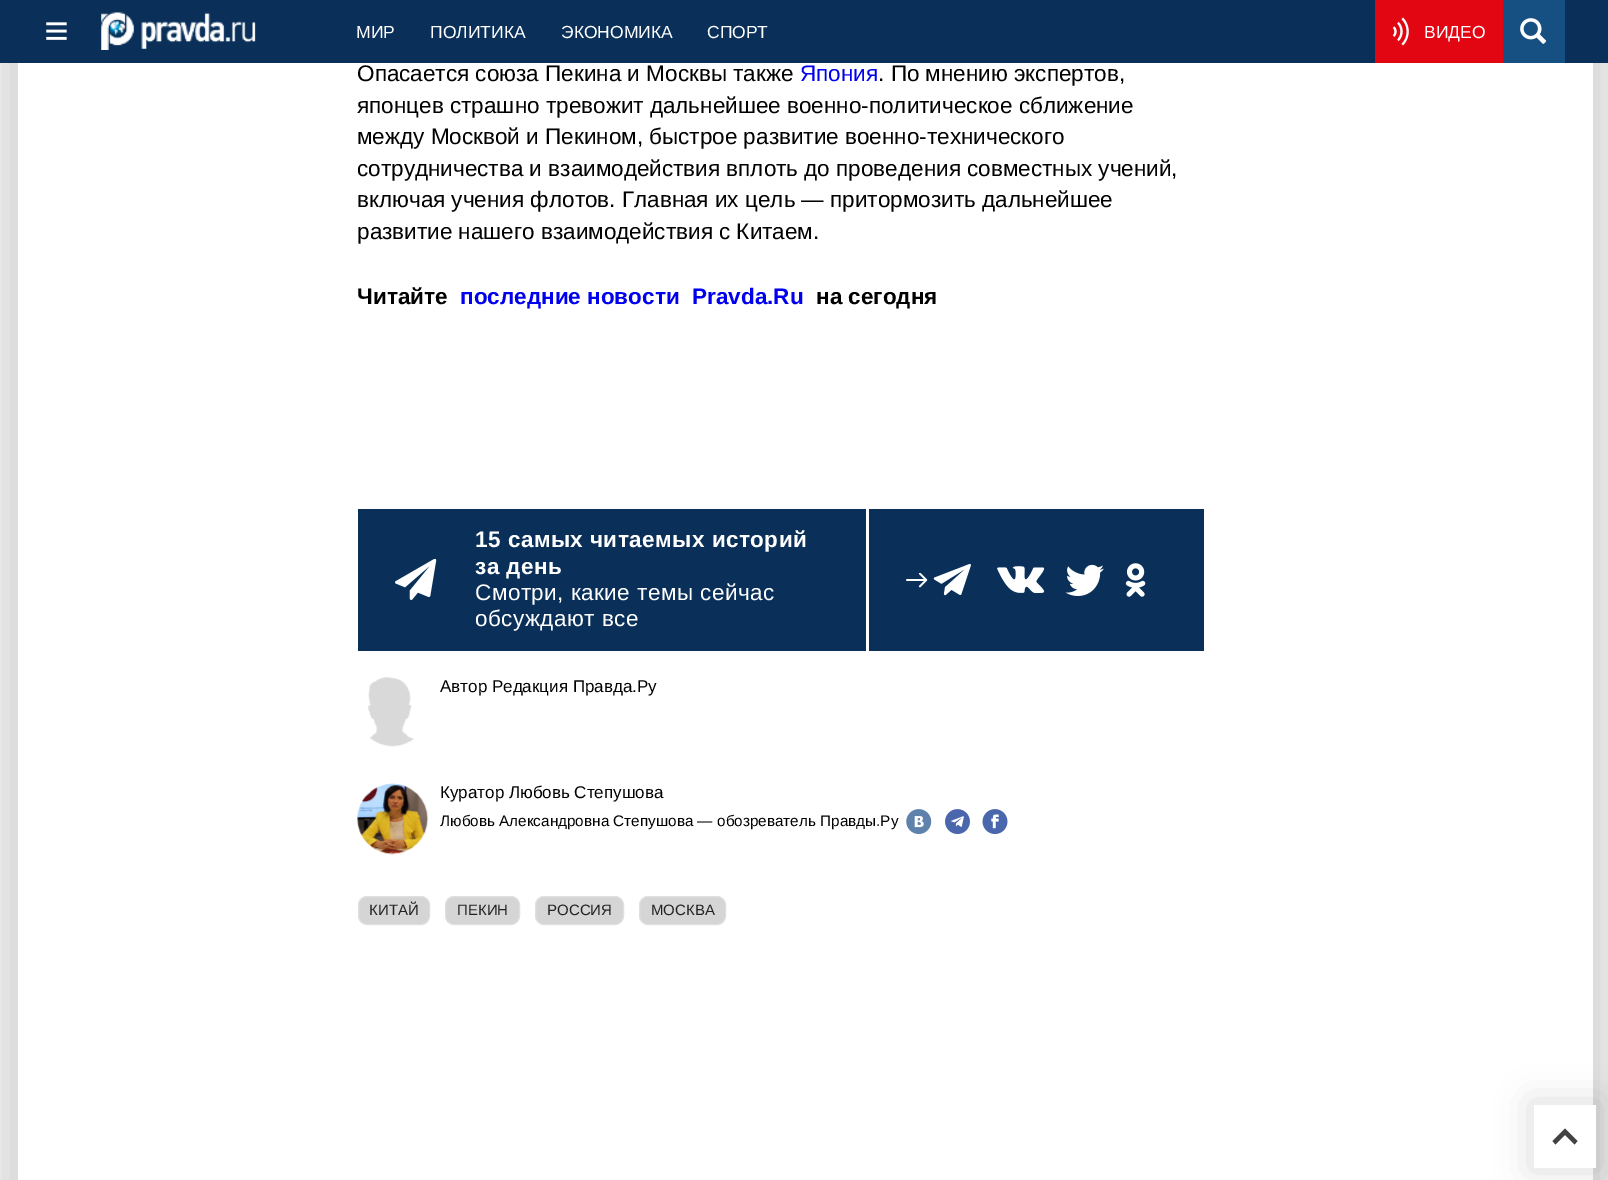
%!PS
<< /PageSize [1608 1180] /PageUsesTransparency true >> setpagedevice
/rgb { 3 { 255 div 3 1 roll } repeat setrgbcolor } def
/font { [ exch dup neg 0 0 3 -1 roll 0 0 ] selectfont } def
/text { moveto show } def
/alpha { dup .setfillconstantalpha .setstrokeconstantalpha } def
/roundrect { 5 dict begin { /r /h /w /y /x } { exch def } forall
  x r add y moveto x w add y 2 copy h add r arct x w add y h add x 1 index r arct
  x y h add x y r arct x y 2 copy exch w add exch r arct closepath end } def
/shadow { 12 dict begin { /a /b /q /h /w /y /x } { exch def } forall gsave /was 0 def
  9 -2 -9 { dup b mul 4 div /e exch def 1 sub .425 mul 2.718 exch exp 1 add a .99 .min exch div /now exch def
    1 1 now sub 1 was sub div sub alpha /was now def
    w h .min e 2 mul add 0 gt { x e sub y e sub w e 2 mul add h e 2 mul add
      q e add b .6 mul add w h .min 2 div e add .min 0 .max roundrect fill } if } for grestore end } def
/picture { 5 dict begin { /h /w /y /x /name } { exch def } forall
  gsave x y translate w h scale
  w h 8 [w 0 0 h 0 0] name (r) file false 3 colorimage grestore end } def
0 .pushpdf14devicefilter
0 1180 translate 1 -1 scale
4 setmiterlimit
237 237 237 rgb
0 0 1608 1180 rectfill
0 0 0 rgb
14 -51 1582 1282 0 17 0.13 shadow
255 255 255 rgb
18 63 1575 1117 rectfill
10 48 90 rgb
0 0 1608 63 rectfill
(img_01.rgb) 46 22 21 18 picture
(img_02.rgb) 101 12 155 38 picture
226 6 19 rgb
1375 0 128 63 rectfill
(img_03.rgb) 1392 17 17 29 picture
22 79 130 rgb
1503 0 62 63 rectfill
(img_04.rgb) 1520 18 27 26 picture
10 48 90 rgb
358 509 846 142 rectfill
255 255 255 rgb
866 509 3 142 rectfill
(img_05.rgb) 395 559 42 41 picture
(img_06.rgb) 906 573 22 15 picture
(img_07.rgb) 933 564 38 32 picture
(img_08.rgb) 997 566 48 27 picture
(img_09.rgb) 1065 564 39 32 picture
(img_10.rgb) 1125 563 21 34 picture
(img_11.rgb) 368 677 46 70 picture
(img_12.rgb) 357 783 72 72 picture
(img_13.rgb) 906 809 26 26 picture
(img_14.rgb) 945 809 25 26 picture
(img_15.rgb) 982 809 26 25 picture
213 213 213 rgb
358.5 896.5 71 28 8.5 roundrect gsave fill grestore
224 224 224 rgb
stroke
213 213 213 rgb
445.5 896.5 74 28 8.5 roundrect gsave fill grestore
224 224 224 rgb
stroke
213 213 213 rgb
535.5 896.5 88 28 8.5 roundrect gsave fill grestore
224 224 224 rgb
stroke
213 213 213 rgb
639.5 896.5 86 28 8.5 roundrect gsave fill grestore
224 224 224 rgb
stroke
0 0 0 rgb
1530 1101 70 70 0 17 0.13 shadow
255 255 255 rgb
1534 1105 62 63 rectfill
66 66 66 rgb
1565 1128.5 moveto 12.5 12.5 rlineto -3 3.5 rlineto -9.5 -9.5 rlineto -9.5 9.5 rlineto -3 -3.5 rlineto closepath fill
/LiberationSans-Regular 17.5 font
255 255 255 rgb
(МИР) 356 38 text
(ПОЛИТИКА) 430 38 text
(ЭКОНОМИКА) 561 38 text
(СПОРТ) 707 38 text
(ВИДЕО) 1424 38 text
/LiberationSans-Regular 22.5 font
0 0 0 rgb
(Опасается союза Пекина и Москвы также) 357 81 text
0 0 238 rgb
(Япония) 800 81 text
0 0 0 rgb
(. По мнению экспертов,) 878 81 text
(японцев страшно тревожит дальнейшее военно-политическое сближение) 357 113 text
(между Москвой и Пекином, быстрое развитие военно-технического) 357 144 text
(сотрудничества и взаимодействия вплоть до проведения совместных учений,) 357 176 text
(включая учения флотов. Главная их цель — притормозить дальнейшее) 357 207 text
(развитие нашего взаимодействия с Китаем.) 357 239 text
/LiberationSans-Bold 22.5 font
(Читайте) 357 304 text
0 0 238 rgb
(последние новости) 460 304 text
(Pravda.Ru) 692 304 text
0 0 0 rgb
(на сегодня) 816 304 text
255 255 255 rgb
475 547 moveto 0.45 0 (15 самых читаемых историй) ashow
475 574 moveto 0.45 0 (за день) ashow
/LiberationSans-Regular 22.5 font
475 600 moveto 0.45 0 (Смотри, какие темы сейчас) ashow
475 626 moveto 0.45 0 (обсуждают все) ashow
/LiberationSans-Regular 17 font
0 0 0 rgb
(Автор Редакция Правда.Ру) 440 692 text
(Куратор Любовь Степушова) 440 798 text
/LiberationSans-Regular 15.3 font
(Любовь Александровна Степушова — обозреватель Правды.Ру) 440 826 text
/LiberationSans-Regular 15 font
35 35 35 rgb
(КИТАЙ) 369 915 text
(ПЕКИН) 457 915 text
(РОССИЯ) 547 915 text
(МОСКВА) 651 915 text
.poppdf14devicefilter showpage
